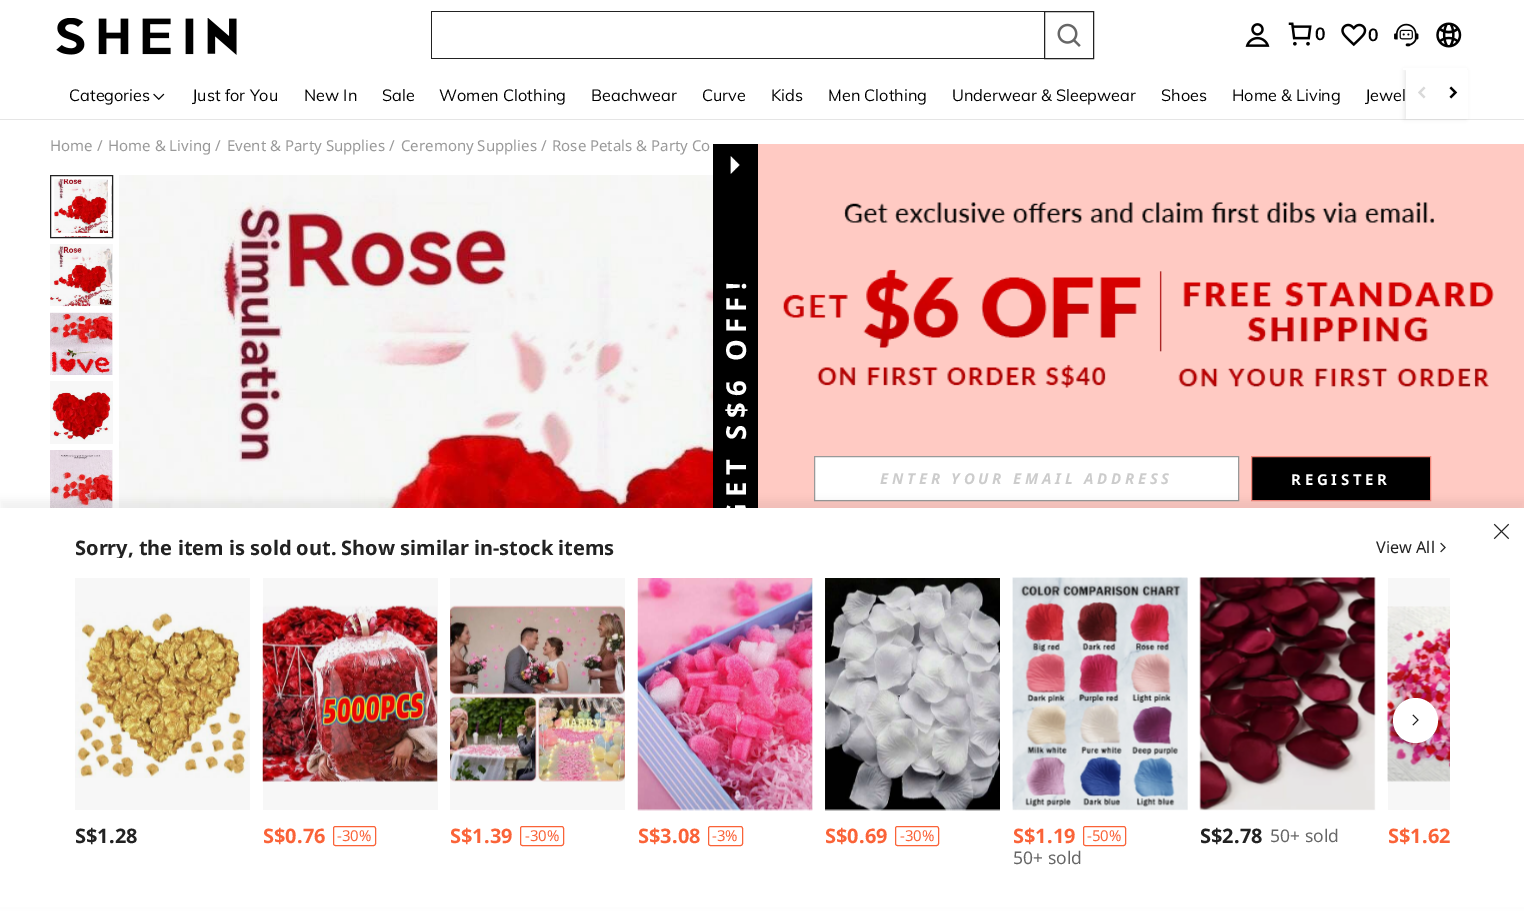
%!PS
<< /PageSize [1524 911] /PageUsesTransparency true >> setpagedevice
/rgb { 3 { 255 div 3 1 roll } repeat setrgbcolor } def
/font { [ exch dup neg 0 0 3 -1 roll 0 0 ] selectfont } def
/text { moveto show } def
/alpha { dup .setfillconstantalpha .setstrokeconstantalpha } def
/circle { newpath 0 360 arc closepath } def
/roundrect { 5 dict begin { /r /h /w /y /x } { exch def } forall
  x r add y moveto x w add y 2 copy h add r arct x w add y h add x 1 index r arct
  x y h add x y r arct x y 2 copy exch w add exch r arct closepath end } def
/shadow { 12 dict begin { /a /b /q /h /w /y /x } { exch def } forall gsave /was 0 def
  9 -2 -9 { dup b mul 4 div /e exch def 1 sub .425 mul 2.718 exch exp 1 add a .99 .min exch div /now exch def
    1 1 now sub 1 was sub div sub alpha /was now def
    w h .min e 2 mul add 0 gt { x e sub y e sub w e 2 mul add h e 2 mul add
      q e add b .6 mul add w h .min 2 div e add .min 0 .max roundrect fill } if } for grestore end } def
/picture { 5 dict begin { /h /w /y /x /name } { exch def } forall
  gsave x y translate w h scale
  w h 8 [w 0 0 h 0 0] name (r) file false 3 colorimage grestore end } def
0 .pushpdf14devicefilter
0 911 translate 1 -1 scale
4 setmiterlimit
255 255 255 rgb
0 0 1524 911 rectfill
229 229 229 rgb
0 119 1524 1 rectfill
0 0 0 rgb
1404 70 62 49 0 2 0.08 shadow
255 255 255 rgb
1403 68 64 2 rectfill
(img_01.rgb) 56 18 181 37 picture
34 34 34 rgb
431 11 613 1 rectfill
431 58 613 1 rectfill
431 11 1 48 rectfill
1044.5 11.5 49 47 rectstroke
(img_02.rgb) 1057 23 24 24 picture
(img_03.rgb) 1245 23 25 24 picture
(img_04.rgb) 1288 22 24 24 picture
(img_05.rgb) 1341 23 26 24 picture
(img_06.rgb) 1394 23 25 24 picture
(img_07.rgb) 1436 22 26 26 picture
(img_08.rgb) 153 93 12 7 picture
255 255 255 rgb
1406 70 62 49 rectfill
(img_09.rgb) 1418 86 8 13 picture
(img_10.rgb) 1449 86 9 13 picture
(img_11.rgb) 51 176 61 61 picture
3 setlinewidth
52.5 177.5 57 57 rectstroke
34 34 34 rgb
1 setlinewidth
50.5 175.5 62 62 rectstroke
247 247 247 rgb
112 244 1 62 rectfill
(img_12.rgb) 50 244 63 63 picture
112 313 1 62 rectfill
(img_13.rgb) 50 312 63 63 picture
50 381 63 63 rectfill
(img_14.rgb) 50 390 63 51 picture
112 450 1 58 rectfill
(img_15.rgb) 50 450 63 58 picture
(img_16.rgb) 119 175 594 333 picture
0 0 0 rgb
713 144 45 364 rectfill
(img_17.rgb) 730 156 10 18 picture
255 202 195 rgb
758 144 766 364 rectfill
(img_18.rgb) 783 202 711 186 picture
255 255 255 rgb
814.5 456.5 moveto 424 0 rlineto 0 44 rlineto -424 0 rlineto closepath gsave fill grestore
153 153 153 rgb
stroke
0 0 0 rgb
1251.5 456.5 moveto 179 0 rlineto 0 44 rlineto -179 0 rlineto closepath gsave fill grestore
240 134 121 rgb
stroke
0 0 0 rgb
0 500 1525 404 0 4 0.05 shadow
255 255 255 rgb
0 508 1524 399 rectfill
(img_19.rgb) 1493 523 17 17 picture
(img_20.rgb) 1440 542 6 11 picture
(img_29.rgb) 1387 606 63 176 picture
0.03 alpha
0 0 0 rgb
1388 578 62 232 rectfill
1 alpha
1389 698 45 45 22.5 2 0.18 shadow
255 255 255 rgb
1415.5 720.5 22.5 circle fill
(img_21.rgb) 1412 714 7 12 picture
(img_22.rgb) 75 612 175 166 picture
0.03 alpha
0 0 0 rgb
75 578 175 232 rectfill
1 alpha
(img_23.rgb) 262 605 176 177 picture
0.03 alpha
263 578 175 232 rectfill
1 alpha
250 99 56 rgb
333.5 826.5 42 19 2 roundrect stroke
(img_24.rgb) 450 605 175 177 picture
0.03 alpha
0 0 0 rgb
450 578 175 232 rectfill
1 alpha
250 99 56 rgb
520.5 826.5 43 19 2 roundrect stroke
(img_25.rgb) 637 578 176 233 picture
0.03 alpha
0 0 0 rgb
638 578 175 232 rectfill
1 alpha
250 99 56 rgb
708.5 826.5 34 19 2 roundrect stroke
(img_26.rgb) 825 578 175 233 picture
0.03 alpha
0 0 0 rgb
825 583 175 227 rectfill
1 alpha
250 99 56 rgb
895.5 826.5 43 19 2 roundrect stroke
(img_27.rgb) 1012 577 176 234 picture
0.03 alpha
0 0 0 rgb
1013 578 175 232 rectfill
1 alpha
250 99 56 rgb
1083.5 826.5 42 19 2 roundrect stroke
(img_28.rgb) 1199 577 177 234 picture
0.03 alpha
0 0 0 rgb
1200 578 175 232 rectfill
/Muli-Bold 17.5 font
1 alpha
(0) 1315 40 text
(0) 1368 41 text
/Muli-Regular 16.25 font
(Categories) 69 101 text
(Just for You) 192 101 text
(New In) 304 101 text
(Sale) 382 101 text
(Women Clothing) 439 101 text
(Beachwear) 591 101 text
(Curve) 702 101 text
(Kids) 771 101 text
(Men Clothing) 828 101 text
(Underwear & Sleepwear) 952 101 text
(Shoes) 1161 101 text
(Home & Living) 1232 101 text
(Jewel) 1365 101 text
/NotoSans-Regular 15 font
153 153 153 rgb
(Home /) 50 151 text
(Home & Living /) 108 151 text
(Event & Party Supplies /) 227 151 text
(Ceremony Supplies /) 401 151 text
(Rose Petals & Party Co) 552 151 text
/NotoSans-Bold 27.5 font
255 255 255 rgb
gsave 746 523 translate -90 rotate 0 0 moveto 6.25 0 (GET S$6 OFF!) ashow grestore
/NotoSans-BoldItalic 15 font
204 204 204 rgb
880 484 moveto 3.75 0 (ENTER YOUR EMAIL ADDRESS) ashow
/NotoSans-Bold 15 font
255 255 255 rgb
1291 485 moveto 3.75 0 (REGISTER) ashow
gsave
75 538 540 20 rectclip
/NotoSans-Bold 20 font
34 34 34 rgb
(Sorry, the item is sold out. Show similar in-stock items) 75 555 text
grestore
/NotoSans-Regular 16.25 font
34 34 34 rgb
(View All) 1376 553 text
/NotoSans-Bold 20 font
(S$1.28) 75 843 text
250 99 56 rgb
(S$0.76) 263 843 text
/NotoSans-Regular 15 font
(-30%) 337 841 text
/NotoSans-Bold 20 font
(S$1.39) 450 843 text
/NotoSans-Regular 15 font
(-30%) 525 841 text
/NotoSans-Bold 20 font
(S$3.08) 638 843 text
/NotoSans-Regular 15 font
(-3%) 712 841 text
/NotoSans-Bold 20 font
(S$0.69) 825 843 text
/NotoSans-Regular 15 font
(-30%) 900 841 text
/NotoSans-Bold 20 font
(S$1.19) 1013 843 text
/NotoSans-Regular 15 font
(-50%) 1087 841 text
/NotoSans-Regular 17.5 font
102 102 102 rgb
(50+ sold) 1013 864 text
/NotoSans-Bold 20 font
34 34 34 rgb
(S$2.78) 1200 843 text
/NotoSans-Regular 17.5 font
102 102 102 rgb
(50+ sold) 1270 842 text
/NotoSans-Bold 20 font
250 99 56 rgb
(S$1.62) 1388 843 text
.poppdf14devicefilter showpage
